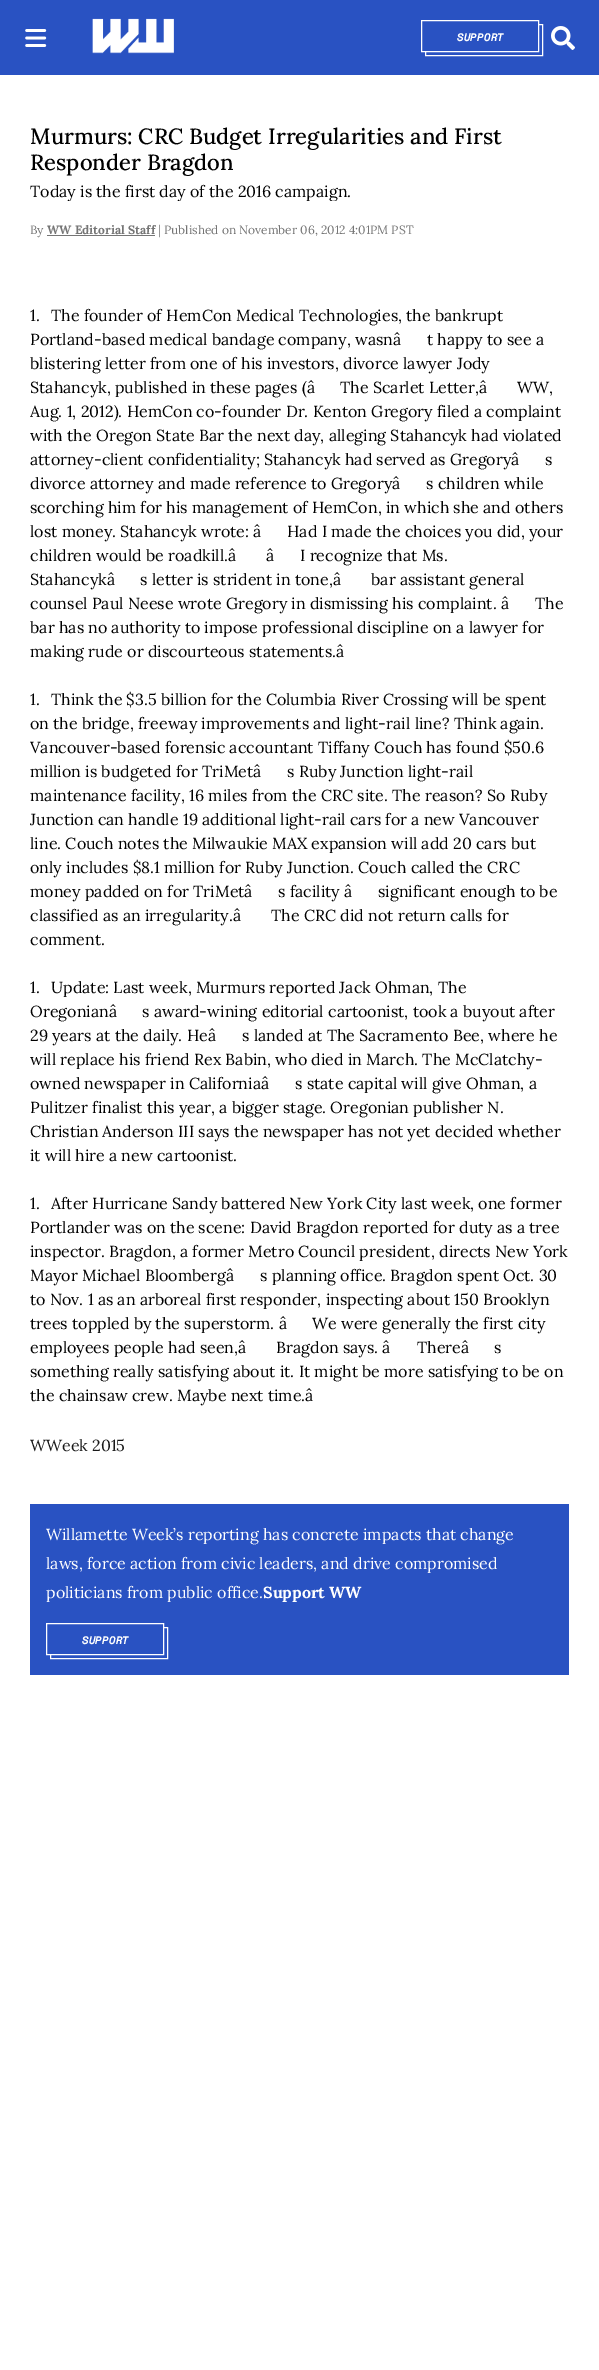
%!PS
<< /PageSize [599 2370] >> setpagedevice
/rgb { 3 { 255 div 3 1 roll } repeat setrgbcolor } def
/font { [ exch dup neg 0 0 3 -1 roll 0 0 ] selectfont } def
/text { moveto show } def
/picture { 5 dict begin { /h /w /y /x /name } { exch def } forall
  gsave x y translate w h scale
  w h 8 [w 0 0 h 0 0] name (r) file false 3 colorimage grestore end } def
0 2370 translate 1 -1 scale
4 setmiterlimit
255 255 255 rgb
0 0 599 2370 rectfill
41 82 194 rgb
0 0 599 75 rectfill
(img_01.rgb) 25 29 22 18 picture
(img_02.rgb) 92 18 82 36 picture
255 255 255 rgb
425.5 24.5 117 31 rectstroke
41 82 194 rgb
425 24 113 27 rectfill
255 255 255 rgb
421.5 20.5 117 31 rectstroke
(img_03.rgb) 551 26 24 24 picture
117 117 117 rgb
47 235 108 1 rectfill
41 82 194 rgb
30 1504 539 171 rectfill
255 255 255 rgb
50.5 1627.5 117 31 rectstroke
41 82 194 rgb
50 1627 113 27 rectfill
255 255 255 rgb
46.5 1623.5 117 31 rectstroke
/SpaceMono-BoldItalic 11 font
(SUPPORT) 457 41 text
/Lora-Medium 22 font
0 0 0 rgb
(Murmurs: CRC Budget Irregularities and First) 30 144 text
(Responder Bragdon) 30 170 text
gsave
30 181 539 20 rectclip
/Lora-Regular 16 font
(Today is the first day of the 2016 campaign.) 30 197 text
grestore
/Lora-Regular 12 font
117 117 117 rgb
(By) 30 234 text
/Lora-Bold 12 font
(WW Editorial Staff) 47 234 text
/Lora-Regular 12 font
(| Published on November 06, 2012 4:01PM PST) 158 234 text
/Lora-Regular 16 font
0 0 0 rgb
(1.) 30 321 text
(The founder of HemCon Medical Technologies, the bankrupt) 51 321 text
(Portland-based medical bandage company, wasnâ) 30 345 text
(t happy to see a) 427 345 text
(blistering letter from one of his investors, divorce lawyer Jody) 30 369 text
(Stahancyk, published in these pages \(â) 30 393 text
(The Scarlet Letter,â) 340 393 text
(WW,) 517 393 text
(Aug. 1, 2012\). HemCon co-founder Dr. Kenton Gregory filed a complaint) 30 417 text
(with the Oregon State Bar the next day, alleging Stahancyk had violated) 30 441 text
(attorney-client confidentiality; Stahancyk had served as Gregoryâ) 30 465 text
(s) 545 465 text
(divorce attorney and made reference to Gregoryâ) 30 489 text
(s children while) 426 489 text
(scorching him for his management of HemCon, in which she and others) 30 513 text
(lost money. Stahancyk wrote: â) 30 537 text
(Had I made the choices you did, your) 287 537 text
(children would be roadkill.â) 30 561 text
(â) 266 561 text
(I recognize that Ms.) 300 561 text
(Stahancykâ) 30 585 text
(s letter is strident in tone,â) 140 585 text
(bar assistant general) 371 585 text
(counsel Paul Neese wrote Gregory in dismissing his complaint. â) 30 609 text
(The) 535 609 text
(bar has no authority to impose professional discipline on a lawyer for) 30 633 text
(making rude or discourteous statements.â) 30 657 text
(1.) 30 705 text
(Think the $3.5 billion for the Columbia River Crossing will be spent) 51 705 text
(on the bridge, freeway improvements and light-rail line? Think again.) 30 729 text
(Vancouver-based forensic accountant Tiffany Couch has found $50.6) 30 753 text
(million is budgeted for TriMetâ) 30 777 text
(s Ruby Junction light-rail) 287 777 text
(maintenance facility, 16 miles from the CRC site. The reason? So Ruby) 30 801 text
(Junction can handle 19 additional light-rail cars for a new Vancouver) 30 825 text
(line. Couch notes the Milwaukie MAX expansion will add 20 cars but) 30 849 text
(only includes $8.1 million for Ruby Junction. Couch called the CRC) 30 873 text
(money padded on for TriMetâ) 30 897 text
(s facility â) 278 897 text
(significant enough to be) 378 897 text
(classified as an irregularity.â) 30 921 text
(The CRC did not return calls for) 271 921 text
(comment.) 30 945 text
(1.) 30 993 text
(Update: Last week, Murmurs reported Jack Ohman, The) 51 993 text
(Oregonianâ) 30 1017 text
(s award-wining editorial cartoonist, took a buyout after) 142 1017 text
(29 years at the daily. Heâ) 30 1041 text
(s landed at The Sacramento Bee, where he) 242 1041 text
(will replace his friend Rex Babin, who died in March. The McClatchy-) 30 1065 text
(owned newspaper in Californiaâ) 30 1089 text
(s state capital will give Ohman, a) 295 1089 text
(Pulitzer finalist this year, a bigger stage. Oregonian publisher N.) 30 1113 text
(Christian Anderson III says the newspaper has not yet decided whether) 30 1137 text
(it will hire a new cartoonist.) 30 1161 text
(1.) 30 1209 text
(After Hurricane Sandy battered New York City last week, one former) 51 1209 text
(Portlander was on the scene: David Bragdon reported for duty as a tree) 30 1233 text
(inspector. Bragdon, a former Metro Council president, directs New York) 30 1257 text
(Mayor Michael Bloombergâ) 30 1281 text
(s planning office. Bragdon spent Oct. 30) 260 1281 text
(to Nov. 1 as an arboreal first responder, inspecting about 150 Brooklyn) 30 1305 text
(trees toppled by the superstorm. â) 30 1329 text
(We were generally the first city) 312 1329 text
(employees people had seen,â) 30 1353 text
(Bragdon says. â) 276 1353 text
(Thereâ) 417 1353 text
(s) 494 1353 text
(something really satisfying about it. It might be more satisfying to be on) 30 1377 text
(the chainsaw crew. Maybe next time.â) 30 1401 text
25 25 25 rgb
(WWeek 2015) 30 1451 text
255 255 255 rgb
(Willamette Week’s reporting has concrete impacts that change) 46 1540 text
(laws, force action from civic leaders, and drive compromised) 46 1569 text
(politicians from public office.) 46 1598 text
/Lora-Bold 16 font
(Support WW) 263 1598 text
/SpaceMono-BoldItalic 11 font
(SUPPORT) 82 1644 text
showpage
